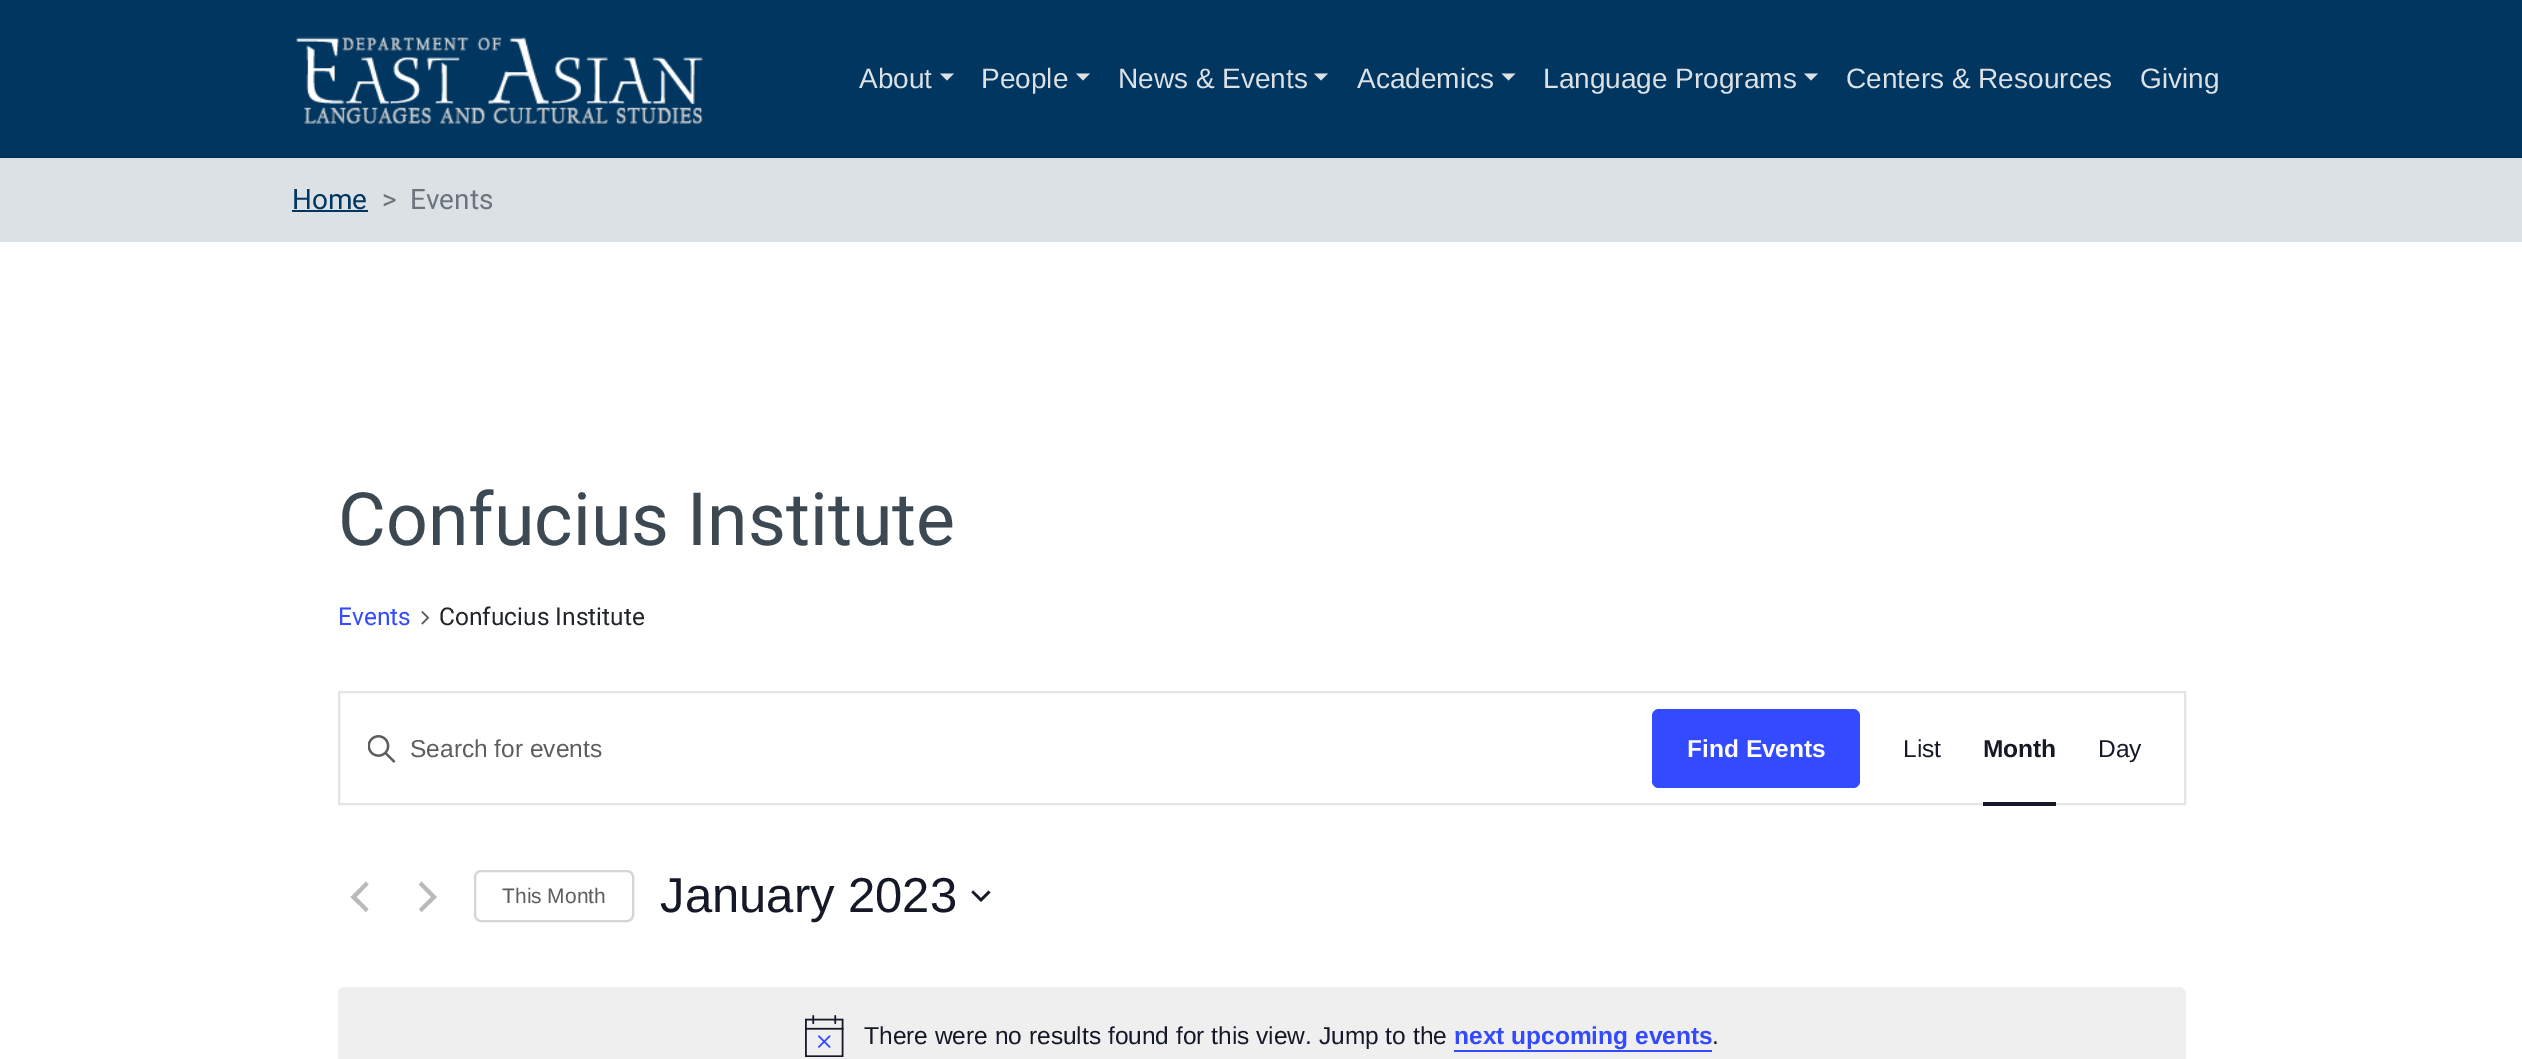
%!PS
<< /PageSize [2522 1059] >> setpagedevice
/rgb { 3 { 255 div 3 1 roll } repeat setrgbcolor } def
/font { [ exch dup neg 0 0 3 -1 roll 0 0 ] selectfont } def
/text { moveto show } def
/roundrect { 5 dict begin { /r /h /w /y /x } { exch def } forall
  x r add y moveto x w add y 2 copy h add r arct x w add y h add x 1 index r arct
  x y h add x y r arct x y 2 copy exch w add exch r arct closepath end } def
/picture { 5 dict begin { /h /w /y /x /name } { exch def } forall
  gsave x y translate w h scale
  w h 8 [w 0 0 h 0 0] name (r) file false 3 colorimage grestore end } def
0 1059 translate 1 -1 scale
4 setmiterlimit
255 255 255 rgb
0 0 2522 1059 rectfill
0 54 96 rgb
0 0 2522 156 rectfill
0 49 86 rgb
0 156 2522 2 rectfill
(img_01.rgb) 295 36 408 88 picture
220 225 229 rgb
940 73.5 moveto 14 0 rlineto -7 7 rlineto closepath fill
1076 73.5 moveto 14 0 rlineto -7 7 rlineto closepath fill
1314 73.5 moveto 14 0 rlineto -7 7 rlineto closepath fill
1501.5 73.5 moveto 14 0 rlineto -7 7 rlineto closepath fill
1804 73.5 moveto 14 0 rlineto -7 7 rlineto closepath fill
0 158 2522 84 rectfill
0 54 96 rgb
292 210 76 2 rectfill
(img_02.rgb) 421 611 9 14 picture
228 228 228 rgb
2 setlinewidth
339 692 1846 112 rectstroke
(img_03.rgb) 368 735 28 28 picture
51 74 255 rgb
1652 709 208 79 7 roundrect fill
20 24 39 rgb
1983 802 73 4 rectfill
186 186 186 rgb
368.5 909 moveto -2.5 3 rlineto -15.5 -15 rlineto 15.5 -15.5 rlineto 2.5 3 rlineto -12 12.5 rlineto closepath fill
419 884.5 moveto 2.5 -3 rlineto 15.5 15.5 rlineto -15.5 15 rlineto -2.5 -3 rlineto 12 -12 rlineto closepath fill
213 213 213 rgb
475 871 158 50 6 roundrect stroke
20 24 39 rgb
973 890.5 moveto 8 7.5 rlineto 7.5 -7.5 rlineto 2 2 rlineto -9.5 9.5 rlineto -9.5 -9.5 rlineto closepath eofill
239 239 240 rgb
338 987 1848 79 7 roundrect fill
(img_04.rgb) 805 1015 39 42 picture
51 74 255 rgb
1454 1050 258 2 rectfill
/LiberationSans-Regular 28 font
220 225 229 rgb
(About) 859 88 text
(People) 981 88 text
(News & Events) 1118 88 text
(Academics) 1357 88 text
(Language Programs) 1543 88 text
(Centers & Resources) 1846 88 text
(Giving) 2140 88 text
/Roboto-Regular 28 font
0 54 96 rgb
(Home) 292 209 text
108 117 125 rgb
(>) 382 209 text
(Events) 410 209 text
/Roboto-Regular 73.5 font
61 73 82 rgb
(Confucius Institute) 338 545 text
/Roboto-Regular 24.5 font
51 74 255 rgb
(Events) 338 625 text
33 37 41 rgb
(Confucius Institute) 439 625 text
/LiberationSans-Regular 24.5 font
93 93 93 rgb
(Search for events) 410 757 text
/LiberationSans-Bold 24.5 font
255 255 255 rgb
(Find Events) 1687 757 text
/LiberationSans-Regular 24.5 font
20 24 39 rgb
(List) 1903 757 text
/LiberationSans-Bold 24.5 font
(Month) 1983 757 text
/LiberationSans-Regular 24.5 font
(Day) 2098 757 text
/LiberationSans-Regular 21 font
93 93 93 rgb
(This Month) 502 903 text
/LiberationSans-Regular 49 font
20 24 39 rgb
(January 2023) 660 912 text
/LiberationSans-Regular 24.5 font
(There were no results found for this view. Jump to the) 864 1044 text
/LiberationSans-Bold 24.5 font
51 74 255 rgb
(next upcoming events) 1454 1044 text
/LiberationSans-Regular 24.5 font
20 24 39 rgb
(.) 1712 1044 text
showpage
